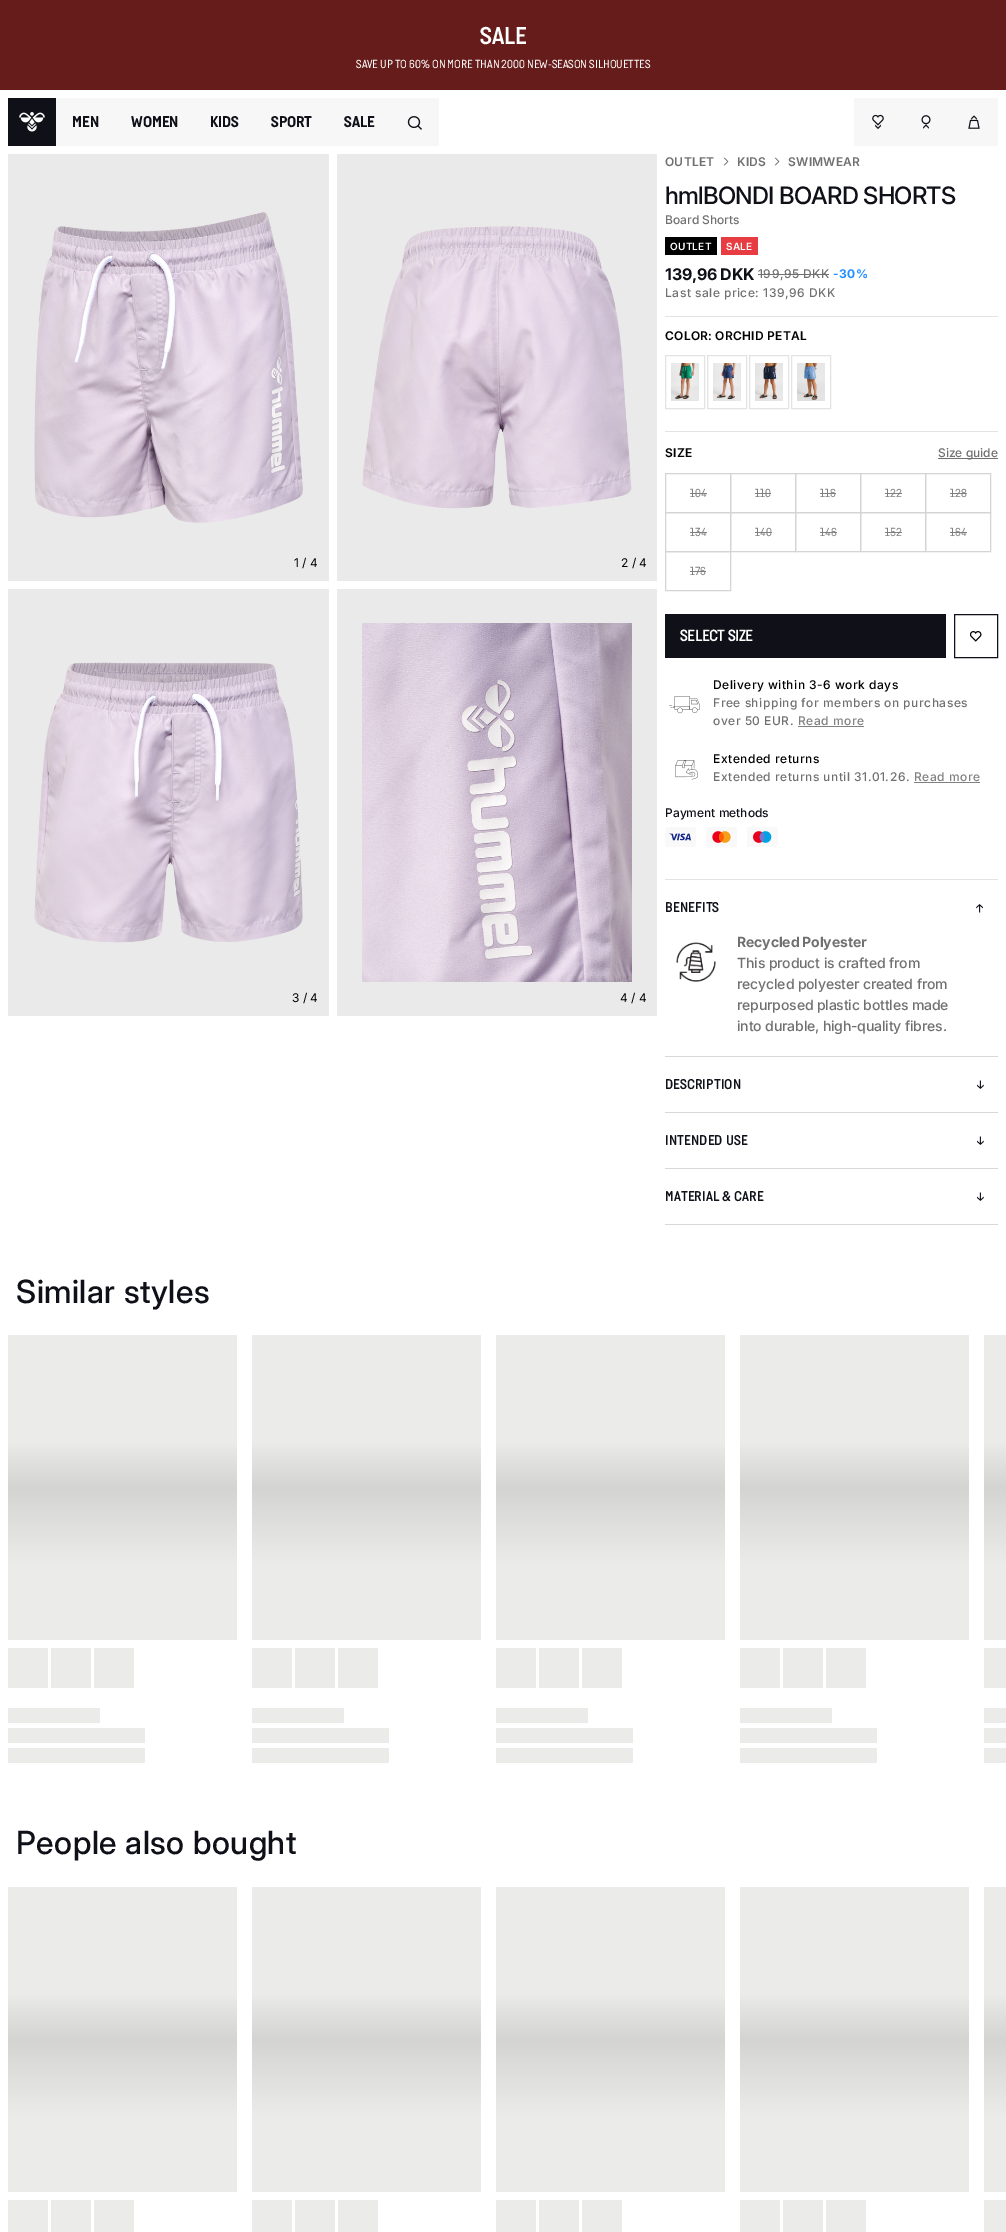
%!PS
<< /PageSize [1006 2232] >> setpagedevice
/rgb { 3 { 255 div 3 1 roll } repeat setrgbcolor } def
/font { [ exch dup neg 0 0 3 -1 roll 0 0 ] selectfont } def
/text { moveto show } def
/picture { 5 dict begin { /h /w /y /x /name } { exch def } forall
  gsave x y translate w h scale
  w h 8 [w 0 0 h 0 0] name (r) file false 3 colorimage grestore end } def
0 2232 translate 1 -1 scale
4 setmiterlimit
255 255 255 rgb
0 0 1006 2232 rectfill
102 28 26 rgb
0 0 1006 90 rectfill
15 16 24 rgb
8 98 48 48 rectfill
(img_01.rgb) 19 112 26 20 picture
247 247 247 rgb
56 98 383 48 rectfill
(img_02.rgb) 407 116 15 14 picture
854 98 144 48 rectfill
(img_03.rgb) 872 114 12 15 picture
(img_04.rgb) 921 115 10 14 picture
(img_05.rgb) 968 115 12 14 picture
234 234 234 rgb
8 154 321 427 rectfill
(img_06.rgb) 34 212 269 311 picture
337 154 320 427 rectfill
(img_07.rgb) 362 226 270 283 picture
8 589 321 427 rectfill
(img_08.rgb) 34 662 269 281 picture
337 589 320 427 rectfill
(img_09.rgb) 362 623 270 359 picture
(img_10.rgb) 723 157 6 9 picture
(img_10.rgb) 774 157 6 9 picture
0 0 0 rgb
665 237 52 18 rectfill
231 61 66 rgb
721 237 37 18 rectfill
112 112 112 rgb
758 274 71 1 rectfill
227 227 227 rgb
665 316 333 1 rectfill
665.5 355.5 39 53 rectstroke
(img_11.rgb) 671 363 28 38 picture
707.5 355.5 39 53 rectstroke
(img_12.rgb) 713 363 28 38 picture
749.5 355.5 39 53 rectstroke
(img_13.rgb) 755 363 28 38 picture
791.5 355.5 39 53 rectstroke
(img_14.rgb) 797 363 28 38 picture
665 431 333 1 rectfill
112 112 112 rgb
938 458 60 1 rectfill
212 212 212 rgb
665.5 473.5 65 39 rectstroke
128 128 128 rgb
690 493 17 1 rectfill
212 212 212 rgb
730.5 473.5 65 39 rectstroke
128 128 128 rgb
755 493 16 1 rectfill
212 212 212 rgb
795.5 473.5 65 39 rectstroke
128 128 128 rgb
820 493 16 1 rectfill
212 212 212 rgb
860.5 473.5 65 39 rectstroke
128 128 128 rgb
885 493 17 1 rectfill
212 212 212 rgb
925.5 473.5 65 39 rectstroke
128 128 128 rgb
950 493 17 1 rectfill
212 212 212 rgb
665.5 512.5 65 39 rectstroke
128 128 128 rgb
690 532 17 1 rectfill
212 212 212 rgb
730.5 512.5 65 39 rectstroke
128 128 128 rgb
755 532 17 1 rectfill
212 212 212 rgb
795.5 512.5 65 39 rectstroke
128 128 128 rgb
820 532 17 1 rectfill
212 212 212 rgb
860.5 512.5 65 39 rectstroke
128 128 128 rgb
885 532 17 1 rectfill
212 212 212 rgb
925.5 512.5 65 39 rectstroke
128 128 128 rgb
950 532 17 1 rectfill
212 212 212 rgb
665.5 551.5 65 39 rectstroke
128 128 128 rgb
690 571 16 1 rectfill
15 16 24 rgb
665 614 281 44 rectfill
954.5 614.5 43 43 rectstroke
(img_15.rgb) 970 631 12 11 picture
(img_16.rgb) 669 696 31 18 picture
128 128 128 rgb
798 726 66 1 rectfill
(img_17.rgb) 675 760 23 20 picture
914 782 66 1 rectfill
(img_18.rgb) 665 827 31 20 picture
(img_19.rgb) 706 827 31 20 picture
(img_20.rgb) 747 827 31 20 picture
227 227 227 rgb
665 879 333 1 rectfill
(img_21.rgb) 976 904 7 9 picture
(img_22.rgb) 676 942 40 40 picture
216 216 216 rgb
665 1056 333 1 rectfill
665 1112 333 1 rectfill
(img_23.rgb) 977 1080 7 9 picture
665 1168 333 1 rectfill
(img_23.rgb) 977 1136 7 9 picture
665 1224 333 1 rectfill
(img_23.rgb) 977 1192 7 9 picture
gsave 8 1335 moveto 229 0 rlineto 0 305 rlineto -229 0 rlineto closepath clip newpath
<< /ShadingType 2 /ColorSpace /DeviceRGB /Coords [123 1640 123 1335] /Extend [true true] /Function << /FunctionType 3 /Domain [0 1] /Functions [<< /FunctionType 2 /Domain [0 1] /C0 [0.922 0.922 0.918] /C1 [0.922 0.922 0.918] /N 1 >> << /FunctionType 2 /Domain [0 1] /C0 [0.922 0.922 0.918] /C1 [0.831 0.831 0.827] /N 1 >> << /FunctionType 2 /Domain [0 1] /C0 [0.831 0.831 0.827] /C1 [0.922 0.922 0.918] /N 1 >> << /FunctionType 2 /Domain [0 1] /C0 [0.922 0.922 0.918] /C1 [0.922 0.922 0.918] /N 1 >>] /Bounds [0.25 0.5 0.65] /Encode [0 1 0 1 0 1 0 1] >> >> shfill grestore
235 235 234 rgb
8 1648 40 40 rectfill
51 1648 40 40 rectfill
94 1648 40 40 rectfill
8 1708 92 15 rectfill
8 1728 137 15 rectfill
8 1748 137 15 rectfill
gsave 252 1335 moveto 229 0 rlineto 0 305 rlineto -229 0 rlineto closepath clip newpath
<< /ShadingType 2 /ColorSpace /DeviceRGB /Coords [367 1640 367 1335] /Extend [true true] /Function << /FunctionType 3 /Domain [0 1] /Functions [<< /FunctionType 2 /Domain [0 1] /C0 [0.922 0.922 0.918] /C1 [0.922 0.922 0.918] /N 1 >> << /FunctionType 2 /Domain [0 1] /C0 [0.922 0.922 0.918] /C1 [0.831 0.831 0.827] /N 1 >> << /FunctionType 2 /Domain [0 1] /C0 [0.831 0.831 0.827] /C1 [0.922 0.922 0.918] /N 1 >> << /FunctionType 2 /Domain [0 1] /C0 [0.922 0.922 0.918] /C1 [0.922 0.922 0.918] /N 1 >>] /Bounds [0.25 0.5 0.65] /Encode [0 1 0 1 0 1 0 1] >> >> shfill grestore
252 1648 40 40 rectfill
295 1648 40 40 rectfill
338 1648 40 40 rectfill
252 1708 92 15 rectfill
252 1728 137 15 rectfill
252 1748 137 15 rectfill
gsave 496 1335 moveto 229 0 rlineto 0 305 rlineto -229 0 rlineto closepath clip newpath
<< /ShadingType 2 /ColorSpace /DeviceRGB /Coords [611 1640 611 1335] /Extend [true true] /Function << /FunctionType 3 /Domain [0 1] /Functions [<< /FunctionType 2 /Domain [0 1] /C0 [0.922 0.922 0.918] /C1 [0.922 0.922 0.918] /N 1 >> << /FunctionType 2 /Domain [0 1] /C0 [0.922 0.922 0.918] /C1 [0.831 0.831 0.827] /N 1 >> << /FunctionType 2 /Domain [0 1] /C0 [0.831 0.831 0.827] /C1 [0.922 0.922 0.918] /N 1 >> << /FunctionType 2 /Domain [0 1] /C0 [0.922 0.922 0.918] /C1 [0.922 0.922 0.918] /N 1 >>] /Bounds [0.25 0.5 0.65] /Encode [0 1 0 1 0 1 0 1] >> >> shfill grestore
496 1648 40 40 rectfill
539 1648 40 40 rectfill
582 1648 40 40 rectfill
496 1708 92 15 rectfill
496 1728 137 15 rectfill
496 1748 137 15 rectfill
gsave 740 1335 moveto 229 0 rlineto 0 305 rlineto -229 0 rlineto closepath clip newpath
<< /ShadingType 2 /ColorSpace /DeviceRGB /Coords [855 1640 855 1335] /Extend [true true] /Function << /FunctionType 3 /Domain [0 1] /Functions [<< /FunctionType 2 /Domain [0 1] /C0 [0.922 0.922 0.918] /C1 [0.922 0.922 0.918] /N 1 >> << /FunctionType 2 /Domain [0 1] /C0 [0.922 0.922 0.918] /C1 [0.831 0.831 0.827] /N 1 >> << /FunctionType 2 /Domain [0 1] /C0 [0.831 0.831 0.827] /C1 [0.922 0.922 0.918] /N 1 >> << /FunctionType 2 /Domain [0 1] /C0 [0.922 0.922 0.918] /C1 [0.922 0.922 0.918] /N 1 >>] /Bounds [0.25 0.5 0.65] /Encode [0 1 0 1 0 1 0 1] >> >> shfill grestore
740 1648 40 40 rectfill
783 1648 40 40 rectfill
826 1648 40 40 rectfill
740 1708 92 15 rectfill
740 1728 137 15 rectfill
740 1748 137 15 rectfill
gsave 984 1335 moveto 22 0 rlineto 0 305 rlineto -22 0 rlineto closepath clip newpath
<< /ShadingType 2 /ColorSpace /DeviceRGB /Coords [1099 1640 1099 1335] /Extend [true true] /Function << /FunctionType 3 /Domain [0 1] /Functions [<< /FunctionType 2 /Domain [0 1] /C0 [0.922 0.922 0.918] /C1 [0.922 0.922 0.918] /N 1 >> << /FunctionType 2 /Domain [0 1] /C0 [0.922 0.922 0.918] /C1 [0.831 0.831 0.827] /N 1 >> << /FunctionType 2 /Domain [0 1] /C0 [0.831 0.831 0.827] /C1 [0.922 0.922 0.918] /N 1 >> << /FunctionType 2 /Domain [0 1] /C0 [0.922 0.922 0.918] /C1 [0.922 0.922 0.918] /N 1 >>] /Bounds [0.25 0.5 0.65] /Encode [0 1 0 1 0 1 0 1] >> >> shfill grestore
984 1648 22 40 rectfill
984 1708 22 15 rectfill
984 1728 22 15 rectfill
984 1748 22 15 rectfill
gsave 8 1887 moveto 229 0 rlineto 0 305 rlineto -229 0 rlineto closepath clip newpath
<< /ShadingType 2 /ColorSpace /DeviceRGB /Coords [123 2192 123 1887] /Extend [true true] /Function << /FunctionType 3 /Domain [0 1] /Functions [<< /FunctionType 2 /Domain [0 1] /C0 [0.922 0.922 0.918] /C1 [0.922 0.922 0.918] /N 1 >> << /FunctionType 2 /Domain [0 1] /C0 [0.922 0.922 0.918] /C1 [0.831 0.831 0.827] /N 1 >> << /FunctionType 2 /Domain [0 1] /C0 [0.831 0.831 0.827] /C1 [0.922 0.922 0.918] /N 1 >> << /FunctionType 2 /Domain [0 1] /C0 [0.922 0.922 0.918] /C1 [0.922 0.922 0.918] /N 1 >>] /Bounds [0.25 0.5 0.65] /Encode [0 1 0 1 0 1 0 1] >> >> shfill grestore
8 2200 40 32 rectfill
51 2200 40 32 rectfill
94 2200 40 32 rectfill
gsave 252 1887 moveto 229 0 rlineto 0 305 rlineto -229 0 rlineto closepath clip newpath
<< /ShadingType 2 /ColorSpace /DeviceRGB /Coords [367 2192 367 1887] /Extend [true true] /Function << /FunctionType 3 /Domain [0 1] /Functions [<< /FunctionType 2 /Domain [0 1] /C0 [0.922 0.922 0.918] /C1 [0.922 0.922 0.918] /N 1 >> << /FunctionType 2 /Domain [0 1] /C0 [0.922 0.922 0.918] /C1 [0.831 0.831 0.827] /N 1 >> << /FunctionType 2 /Domain [0 1] /C0 [0.831 0.831 0.827] /C1 [0.922 0.922 0.918] /N 1 >> << /FunctionType 2 /Domain [0 1] /C0 [0.922 0.922 0.918] /C1 [0.922 0.922 0.918] /N 1 >>] /Bounds [0.25 0.5 0.65] /Encode [0 1 0 1 0 1 0 1] >> >> shfill grestore
252 2200 40 32 rectfill
295 2200 40 32 rectfill
338 2200 40 32 rectfill
gsave 496 1887 moveto 229 0 rlineto 0 305 rlineto -229 0 rlineto closepath clip newpath
<< /ShadingType 2 /ColorSpace /DeviceRGB /Coords [611 2192 611 1887] /Extend [true true] /Function << /FunctionType 3 /Domain [0 1] /Functions [<< /FunctionType 2 /Domain [0 1] /C0 [0.922 0.922 0.918] /C1 [0.922 0.922 0.918] /N 1 >> << /FunctionType 2 /Domain [0 1] /C0 [0.922 0.922 0.918] /C1 [0.831 0.831 0.827] /N 1 >> << /FunctionType 2 /Domain [0 1] /C0 [0.831 0.831 0.827] /C1 [0.922 0.922 0.918] /N 1 >> << /FunctionType 2 /Domain [0 1] /C0 [0.922 0.922 0.918] /C1 [0.922 0.922 0.918] /N 1 >>] /Bounds [0.25 0.5 0.65] /Encode [0 1 0 1 0 1 0 1] >> >> shfill grestore
496 2200 40 32 rectfill
539 2200 40 32 rectfill
582 2200 40 32 rectfill
gsave 740 1887 moveto 229 0 rlineto 0 305 rlineto -229 0 rlineto closepath clip newpath
<< /ShadingType 2 /ColorSpace /DeviceRGB /Coords [855 2192 855 1887] /Extend [true true] /Function << /FunctionType 3 /Domain [0 1] /Functions [<< /FunctionType 2 /Domain [0 1] /C0 [0.922 0.922 0.918] /C1 [0.922 0.922 0.918] /N 1 >> << /FunctionType 2 /Domain [0 1] /C0 [0.922 0.922 0.918] /C1 [0.831 0.831 0.827] /N 1 >> << /FunctionType 2 /Domain [0 1] /C0 [0.831 0.831 0.827] /C1 [0.922 0.922 0.918] /N 1 >> << /FunctionType 2 /Domain [0 1] /C0 [0.922 0.922 0.918] /C1 [0.922 0.922 0.918] /N 1 >>] /Bounds [0.25 0.5 0.65] /Encode [0 1 0 1 0 1 0 1] >> >> shfill grestore
740 2200 40 32 rectfill
783 2200 40 32 rectfill
826 2200 40 32 rectfill
gsave 984 1887 moveto 22 0 rlineto 0 305 rlineto -22 0 rlineto closepath clip newpath
<< /ShadingType 2 /ColorSpace /DeviceRGB /Coords [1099 2192 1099 1887] /Extend [true true] /Function << /FunctionType 3 /Domain [0 1] /Functions [<< /FunctionType 2 /Domain [0 1] /C0 [0.922 0.922 0.918] /C1 [0.922 0.922 0.918] /N 1 >> << /FunctionType 2 /Domain [0 1] /C0 [0.922 0.922 0.918] /C1 [0.831 0.831 0.827] /N 1 >> << /FunctionType 2 /Domain [0 1] /C0 [0.831 0.831 0.827] /C1 [0.922 0.922 0.918] /N 1 >> << /FunctionType 2 /Domain [0 1] /C0 [0.922 0.922 0.918] /C1 [0.922 0.922 0.918] /N 1 >>] /Bounds [0.25 0.5 0.65] /Encode [0 1 0 1 0 1 0 1] >> >> shfill grestore
984 2200 22 32 rectfill
/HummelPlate-SemiBold 25 font
255 255 255 rgb
(SALE) 480 44 text
/HummelPlate-Regular 12 font
(SAVE UP TO 60% ON MORE THAN 2000 NEW-SEASON SILHOUETTES) 356 68 text
/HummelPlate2-Bold 16 font
15 16 24 rgb
(MEN) 72 127 text
(WOMEN) 131 127 text
(KIDS) 210 127 text
(SPORT) 271 127 text
(SALE) 344 127 text
/Inter-Regular 12 font
0 0 0 rgb
(1 / 4) 294 567 text
(2 / 4) 621 567 text
(3 / 4) 292 1002 text
(4 / 4) 620 1002 text
/Inter-SemiBold 12 font
112 112 112 rgb
665 166 moveto 0.25 0 (OUTLET) ashow
737 166 moveto 0.25 0 (KIDS) ashow
788 166 moveto 0.25 0 (SWIMWEAR) ashow
/Inter-Medium 24 font
15 16 24 rgb
665 204 moveto -0.75 0 (hmlBONDI BOARD SHORTS) ashow
/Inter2-Medium 12 font
112 112 112 rgb
(Board Shorts) 665 224 text
/Inter-SemiBold 10 font
255 255 255 rgb
670 250 moveto 0.25 0 (OUTLET) ashow
726 250 moveto 0.25 0 (SALE) ashow
/Inter-Bold 16 font
15 16 24 rgb
665 280 moveto -0.25 0 (139,96 DKK) ashow
/Inter2-Medium 12 font
112 112 112 rgb
758 278 moveto 0.5 0 (199,95 DKK) ashow
/Inter2-Bold 12 font
34 145 255 rgb
833 278 moveto 0.5 0 (-30%) ashow
/Inter2-Medium 12 font
112 112 112 rgb
665 297 moveto 0.5 0 (Last sale price: 139,96 DKK) ashow
/Inter-SemiBold 12 font
0 0 0 rgb
665 340 moveto 0.25 0 (COLOR: ORCHID PETAL) ashow
665 457 moveto 0.25 0 (SIZE) ashow
/Inter2-Medium 12 font
112 112 112 rgb
(Size guide) 938 457 text
/HummelPlate-Regular 12 font
128 128 128 rgb
(104) 690 497 text
(110) 755 497 text
(116) 820 497 text
(122) 885 497 text
(128) 950 497 text
(134) 690 536 text
(140) 755 536 text
(146) 820 536 text
(152) 885 536 text
(164) 950 536 text
(176) 690 575 text
/HummelPlate-Bold 16 font
255 255 255 rgb
(SELECT SIZE) 680 641 text
/Inter2-Medium 12 font
0 0 0 rgb
713 689 moveto 0.5 0 (Delivery within 3-6 work days) ashow
112 112 112 rgb
713 707 moveto 0.5 0 (Free shipping for members on purchases) ashow
713 725 moveto 0.5 0 (over 50 EUR.) ashow
128 128 128 rgb
798 725 moveto 0.5 0 (Read more) ashow
0 0 0 rgb
713 763 moveto 0.5 0 (Extended returns) ashow
112 112 112 rgb
713 781 moveto 0.5 0 (Extended returns until 31.01.26.) ashow
128 128 128 rgb
914 781 moveto 0.5 0 (Read more) ashow
15 16 24 rgb
(Payment methods) 665 817 text
/HummelPlate-Bold 14 font
665 912 moveto 0.5 0 (BENEFITS) ashow
/Inter2-Bold 14 font
112 112 112 rgb
737 947 moveto -0.15 0 (Recycled Polyester) ashow
/Inter2-Medium 14 font
737 968 moveto -0.15 0 (This product is crafted from) ashow
737 989 moveto -0.15 0 (recycled polyester created from) ashow
737 1010 moveto -0.15 0 (repurposed plastic bottles made) ashow
737 1031 moveto -0.15 0 (into durable, high-quality fibres.) ashow
/HummelPlate-Bold 14 font
15 16 24 rgb
665 1089 moveto 0.5 0 (DESCRIPTION) ashow
665 1145 moveto 0.5 0 (INTENDED USE) ashow
665 1201 moveto 0.5 0 (MATERIAL & CARE) ashow
/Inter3-Medium 32 font
16 1303 moveto 0.5 0 (Similar styles) ashow
16 1854 moveto 0.5 0 (People also bought) ashow
showpage
